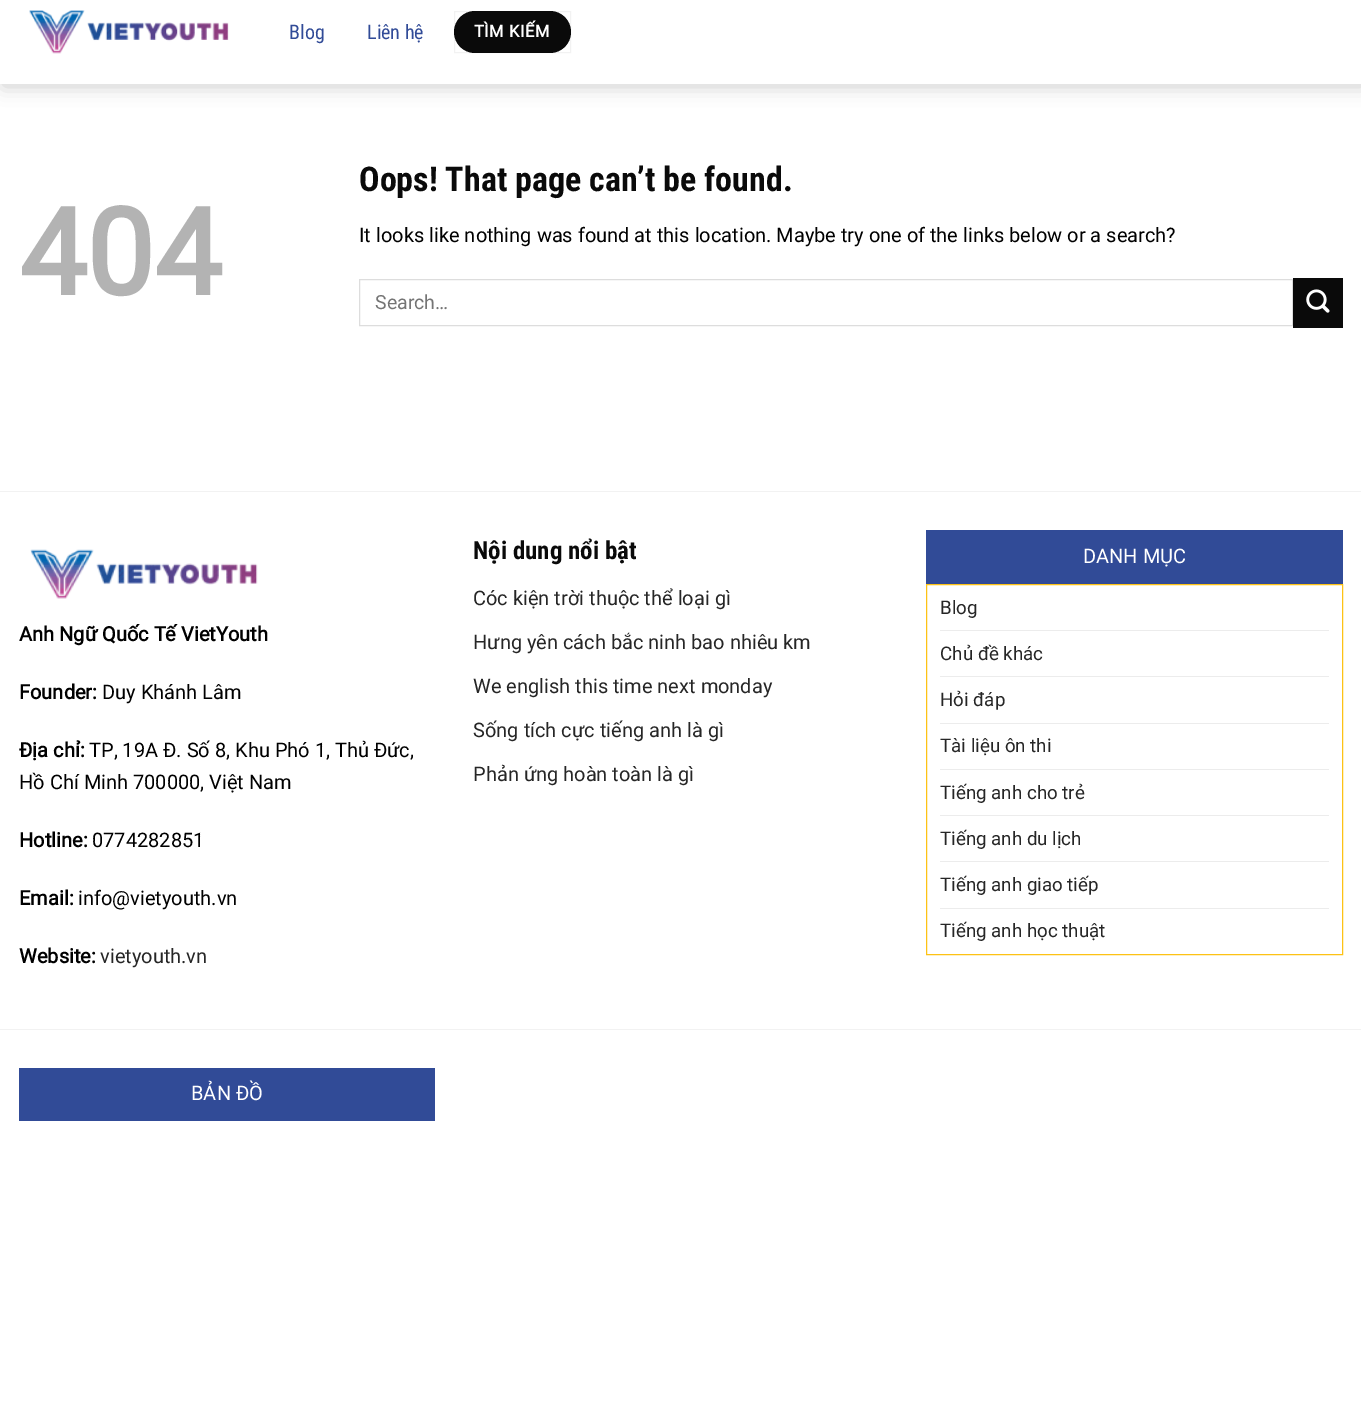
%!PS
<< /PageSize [1361 1424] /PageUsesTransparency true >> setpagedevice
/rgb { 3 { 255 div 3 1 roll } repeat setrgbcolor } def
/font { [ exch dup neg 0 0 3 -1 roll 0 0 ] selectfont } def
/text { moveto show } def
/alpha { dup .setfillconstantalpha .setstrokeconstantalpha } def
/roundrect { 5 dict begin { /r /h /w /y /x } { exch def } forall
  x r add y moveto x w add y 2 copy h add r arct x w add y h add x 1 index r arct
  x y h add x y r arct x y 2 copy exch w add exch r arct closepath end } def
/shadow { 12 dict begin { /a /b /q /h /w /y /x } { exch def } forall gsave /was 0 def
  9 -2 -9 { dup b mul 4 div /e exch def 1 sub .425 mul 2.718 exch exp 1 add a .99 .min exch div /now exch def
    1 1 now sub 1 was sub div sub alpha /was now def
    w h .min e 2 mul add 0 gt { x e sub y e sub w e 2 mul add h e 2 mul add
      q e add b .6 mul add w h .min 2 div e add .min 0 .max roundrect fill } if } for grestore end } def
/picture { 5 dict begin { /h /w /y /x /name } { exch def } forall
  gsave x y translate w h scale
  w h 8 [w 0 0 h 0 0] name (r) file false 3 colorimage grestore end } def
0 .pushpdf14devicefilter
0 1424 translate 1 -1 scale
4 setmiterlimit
255 255 255 rgb
0 0 1361 1424 rectfill
gsave
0 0 moveto 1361 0 rlineto 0 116 rlineto -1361 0 rlineto closepath 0 -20 moveto 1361 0 rlineto 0 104 rlineto -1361 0 rlineto closepath eoclip newpath
0 0 0 rgb
3 -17 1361 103 0 9.5 0.2 shadow
grestore
(img_01.rgb) 29 10 200 44 picture
10 10 10 rgb
454 11 117 42 21 roundrect fill
0.05 alpha
0 0 0 rgb
454.5 11.5 116 41 rectstroke
1 alpha
221 221 221 rgb
359.5 279.5 933 46 rectstroke
10 10 10 rgb
1293 278 50 50 rectfill
(img_02.rgb) 1306 289 24 24 picture
242 242 242 rgb
0 491 1361 1 rectfill
(img_03.rgb) 30 549 228 50 picture
49 75 151 rgb
926 530 417 54 rectfill
253 194 21 rgb
926.5 584.5 416 370 rectstroke
236 236 236 rgb
940 630 389 1 rectfill
940 676 389 1 rectfill
940 723 389 1 rectfill
940 769 389 1 rectfill
940 815 389 1 rectfill
940 861 389 1 rectfill
940 908 389 1 rectfill
242 242 242 rgb
0 1029 1361 1 rectfill
49 75 151 rgb
19 1068 416 53 rectfill
/RobotoCondensed-Regular 20 font
(Blog) 289 39 text
(Liên hệ) 367 39 text
/Roboto-Bold 16.5 font
255 255 255 rgb
474 37 moveto 0.5 0 (TÌM KIẾM) ashow
/Roboto-Bold 120 font
179 179 179 rgb
(404) 19 295 text
/RobotoCondensed-Bold 34 font
10 10 10 rgb
(Oops! That page can’t be found.) 359 191 text
/Roboto-Regular 20 font
0 0 0 rgb
(It looks like nothing was found at this location. Maybe try one of the links below or a search?) 359 242 text
/Roboto-Regular 19.5 font
117 117 117 rgb
(Search…) 375 309 text
/Roboto-Bold 20 font
0 0 0 rgb
(Anh Ngữ Quốc Tế VietYouth) 19 641 text
(Founder:) 19 699 text
/Roboto-Regular 20 font
(Duy Khánh Lâm) 102 699 text
/Roboto-Bold 20 font
(Địa chỉ:) 19 757 text
/Roboto-Regular 20 font
(TP, 19A Đ. Số 8, Khu Phó 1, Thủ Đức,) 89 757 text
(Hồ Chí Minh 700000, Việt Nam) 19 789 text
/Roboto-Bold 20 font
(Hotline:) 19 847 text
/Roboto-Regular 20 font
(0774282851) 92 847 text
/Roboto-Bold 20 font
(Email:) 19 905 text
/Roboto-Regular 20 font
(info@vietyouth.vn) 78 905 text
/Roboto-Bold 20 font
(Website:) 19 963 text
/Roboto-Regular 20 font
38 38 38 rgb
(vietyouth.vn) 100 963 text
/RobotoCondensed-Bold 25 font
10 10 10 rgb
(Nội dung nổi bật) 473 559 text
/Roboto-Regular 20 font
38 38 38 rgb
(Cóc kiện trời thuộc thể loại gì) 473 605 text
(Hưng yên cách bắc ninh bao nhiêu km) 473 649 text
(We english this time next monday) 473 693 text
(Sống tích cực tiếng anh là gì) 473 737 text
(Phản ứng hoàn toàn là gì) 473 781 text
255 255 255 rgb
(DANH MỤC) 1083 563 text
/Roboto-Regular 18.75 font
38 38 38 rgb
(Blog) 940 614 text
(Chủ đề khác) 940 660 text
(Hỏi đáp) 940 706 text
(Tài liệu ôn thi) 940 752 text
(Tiếng anh cho trẻ) 940 799 text
(Tiếng anh du lịch) 940 845 text
(Tiếng anh giao tiếp) 940 891 text
(Tiếng anh học thuật) 940 937 text
/Roboto-Regular 20 font
255 255 255 rgb
(BẢN ĐỒ) 191 1100 text
.poppdf14devicefilter showpage
